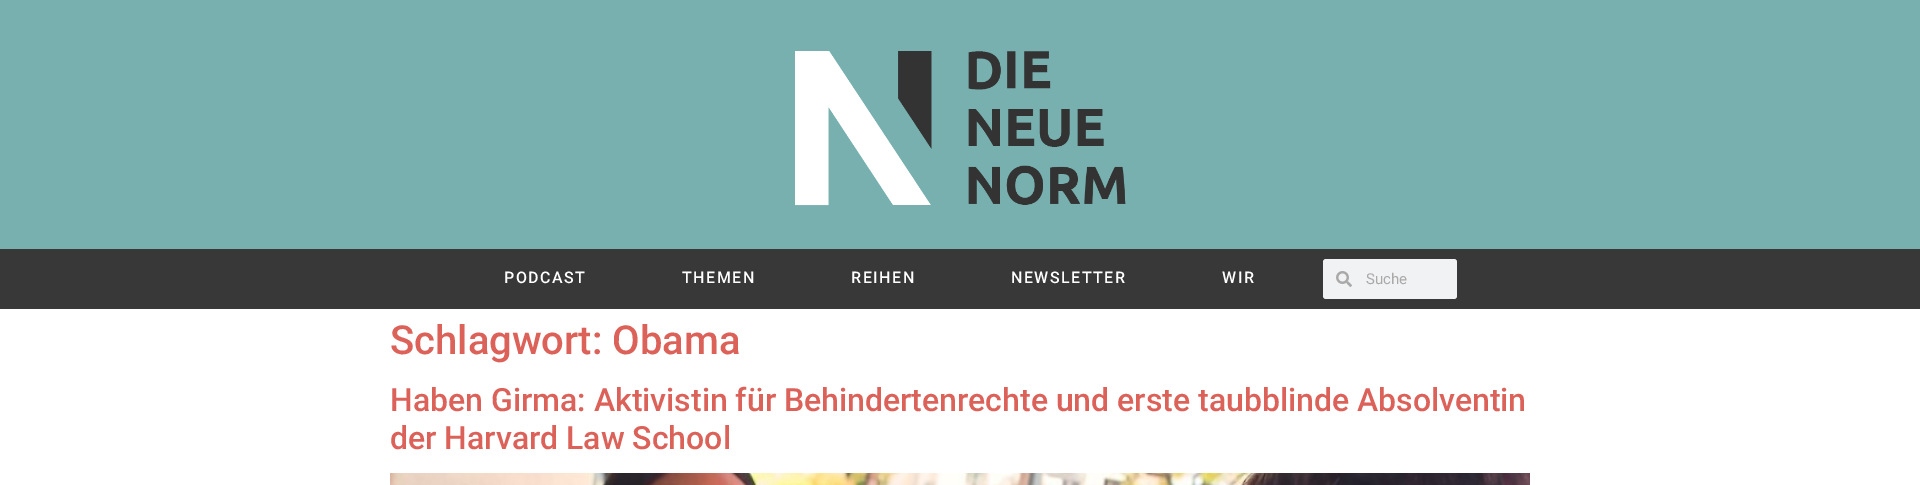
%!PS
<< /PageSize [1920 485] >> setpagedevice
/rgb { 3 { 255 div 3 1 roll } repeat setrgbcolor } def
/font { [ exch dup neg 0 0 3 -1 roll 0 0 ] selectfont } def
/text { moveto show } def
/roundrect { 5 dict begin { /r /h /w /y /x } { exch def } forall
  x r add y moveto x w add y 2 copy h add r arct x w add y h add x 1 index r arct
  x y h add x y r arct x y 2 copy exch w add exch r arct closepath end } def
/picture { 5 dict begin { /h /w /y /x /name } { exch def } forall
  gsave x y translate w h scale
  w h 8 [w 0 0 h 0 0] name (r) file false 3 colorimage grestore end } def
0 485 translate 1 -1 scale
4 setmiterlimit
255 255 255 rgb
0 0 1920 485 rectfill
119 176 174 rgb
0 0 1920 249 rectfill
(img_01.rgb) 795 51 331 155 picture
56 56 56 rgb
0 249 1920 60 rectfill
241 242 243 rgb
1323 259 134 40 3 roundrect fill
(img_02.rgb) 1336 271 16 16 picture
(img_03.rgb) 390 473 1140 12 picture
/Roboto-Medium 16 font
255 255 255 rgb
504 283 moveto 1.5 0 (PODCAST) ashow
682 283 moveto 1.5 0 (THEMEN) ashow
851 283 moveto 1.5 0 (REIHEN) ashow
1011 283 moveto 1.5 0 (NEWSLETTER) ashow
1222 283 moveto 1.5 0 (WIR) ashow
/Roboto-Regular 15 font
170 169 170 rgb
(Suche) 1366 284 text
/Roboto-Medium 40 font
219 97 89 rgb
(Schlagwort: Obama) 390 354 text
/Roboto-Medium 32 font
(Haben Girma: Aktivistin für Behindertenrechte und erste taubblinde Absolventin) 390 411 text
(der Harvard Law School) 390 449 text
showpage
